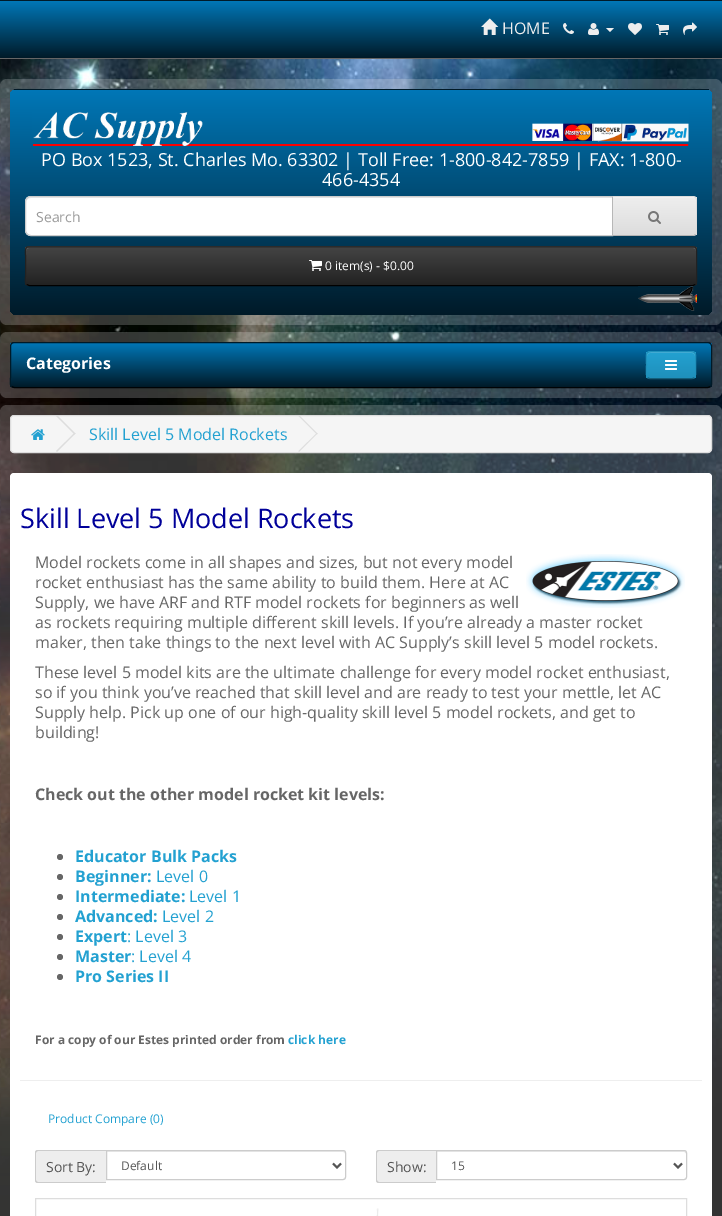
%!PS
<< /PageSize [722 1216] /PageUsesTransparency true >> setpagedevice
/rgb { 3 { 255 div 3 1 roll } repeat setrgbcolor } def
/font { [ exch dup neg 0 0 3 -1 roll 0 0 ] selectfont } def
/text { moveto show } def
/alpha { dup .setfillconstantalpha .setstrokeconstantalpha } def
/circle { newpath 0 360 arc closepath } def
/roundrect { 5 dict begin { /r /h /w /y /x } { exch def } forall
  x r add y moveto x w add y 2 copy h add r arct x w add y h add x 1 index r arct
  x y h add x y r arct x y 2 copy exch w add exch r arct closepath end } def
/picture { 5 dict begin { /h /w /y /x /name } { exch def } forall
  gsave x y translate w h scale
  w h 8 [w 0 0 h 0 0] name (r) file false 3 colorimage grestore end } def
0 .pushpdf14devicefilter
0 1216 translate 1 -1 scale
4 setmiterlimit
255 255 255 rgb
0 0 722 1216 rectfill
(img_01.rgb) 0 59 722 1157 picture
0 27 41 rgb
0 0 722 1 rectfill
gsave 0 1 moveto 722 0 rlineto 0 57 rlineto -722 0 rlineto closepath clip newpath
<< /ShadingType 2 /ColorSpace /DeviceRGB /Coords [361 1 361 58] /Extend [true true] /Function << /FunctionType 2 /Domain [0 1] /C0 [0 0.467 0.718] /C1 [0 0.102 0.157] /N 1 >> >> shfill grestore
102 102 102 rgb
0 58 722 1 rectfill
(img_02.rgb) 481 18 18 17 picture
(img_03.rgb) 563 23 11 11 picture
(img_04.rgb) 588 23 11 12 picture
238 238 238 rgb
606 28 moveto 8 0 rlineto -4 4 rlineto closepath fill
(img_05.rgb) 628 23 14 12 picture
(img_06.rgb) 656 24 13 11 picture
(img_07.rgb) 683 22 14 13 picture
0.2 alpha
255 255 255 rgb
0 79 722 246 7 roundrect fill
1 alpha
0 27 41 rgb
10 89 702 226 7 roundrect fill
gsave
10 89 702 226 7 roundrect clip newpath
gsave 10 90 moveto 702 0 rlineto 0 218 rlineto 0 4 -3 7 -7 7 rcurveto -688 0 rlineto -4 0 -7 -3 -7 -7 rcurveto closepath clip newpath
<< /ShadingType 2 /ColorSpace /DeviceRGB /Coords [361 90 361 315] /Extend [true true] /Function << /FunctionType 2 /Domain [0 1] /C0 [0 0.467 0.718] /C1 [0 0.102 0.157] /N 1 >> >> shfill grestore
grestore
0 26 40 rgb
14 89 695 1 rectfill
(img_08.rgb) 32 112 657 34 picture
255 255 255 rgb
31 196 moveto 582 0 rlineto 0 40 rlineto -582 0 rlineto -3.5 0 -6 -2.5 -6 -6 rcurveto 0 -28 rlineto 0 -3.5 2.5 -6 6 -6 rcurveto closepath fill
236 236 236 rgb
31 198 moveto 581 0 rlineto 0 -1 rlineto -581 0 rlineto -3 0 -5 3 -5 6 rcurveto 0 -3 2 -5 5 -5 rcurveto closepath fill
204 204 204 rgb
31 196.5 moveto 581.5 0 rlineto 0 39 rlineto -581.5 0 rlineto -3 0 -5.5 -2.5 -5.5 -5.5 rcurveto 0 -28 rlineto 0 -3 2.5 -5.5 5.5 -5.5 rcurveto closepath stroke
231 231 231 rgb
612 196 moveto 81 0 rlineto 2 0 4 2 4 4 rcurveto 0 32 rlineto 0 2 -2 4 -4 4 rcurveto -81 0 rlineto closepath fill
gsave
612 196 moveto 81 0 rlineto 2 0 4 2 4 4 rcurveto 0 32 rlineto 0 2 -2 4 -4 4 rcurveto -81 0 rlineto closepath clip newpath
gsave 613 197 moveto 84 0 rlineto 0 38 rlineto -84 0 rlineto closepath clip newpath
<< /ShadingType 2 /ColorSpace /DeviceRGB /Coords [655 197 655 235] /Extend [true true] /Function << /FunctionType 2 /Domain [0 1] /C0 [0.933 0.933 0.933] /C1 [0.867 0.867 0.867] /N 1 >> >> shfill grestore
grestore
241 241 241 rgb
613 198 moveto 80 0 rlineto 2 0 3 1 3 3 rcurveto 0 -1 rlineto 0 -2 -1 -3 -3 -3 rcurveto -80 0 rlineto closepath fill
221 221 221 rgb
612 196 moveto 1 1 rlineto 81 0 rlineto 1 1 rlineto 1 -1 rlineto -3 -1 rlineto closepath fill
697 232 moveto 0 -32 rlineto 0 -1 -0.5 -2 -1 -3 rcurveto -1 1 rlineto 1 0 1 1 1 2 rcurveto 0 32 rlineto 0 1 0 2 -1 2 rcurveto 1 1 rlineto 0.5 -1 1 -2 1 -3 rcurveto closepath fill
179 179 179 rgb
693 236 moveto 3 -1 rlineto -1 -1 rlineto -1 1 rlineto -81 0 rlineto -1 1 rlineto closepath fill
183 183 183 rgb
612 196 moveto 0 40 rlineto 1 -1 rlineto 0 -38 rlineto closepath fill
(img_09.rgb) 648 211 13 13 picture
54 54 54 rgb
25 246 672 40 4 roundrect fill
gsave
25 246 672 40 4 roundrect clip newpath
gsave 25 247 moveto 672 0 rlineto 0 38 rlineto -672 0 rlineto closepath clip newpath
<< /ShadingType 2 /ColorSpace /DeviceRGB /Coords [361 247 361 285] /Extend [true true] /Function << /FunctionType 2 /Domain [0 1] /C0 [0.267 0.267 0.267] /C1 [0.133 0.133 0.133] /N 1 >> >> shfill grestore
grestore
105 105 105 rgb
29 248 moveto 664 0 rlineto 2 0 3 1 3 3 rcurveto 0 -1 rlineto 0 -2 -1 -3 -3 -3 rcurveto -664 0 rlineto -2 0 -3 1 -3 3 rcurveto 0 1 rlineto 0 -2 1 -3 3 -3 rcurveto closepath fill
0 0 0 rgb
695.5 284.5 moveto -2.5 1 rlineto -664 0 rlineto -2.5 -1 rlineto stroke
34 34 34 rgb
26.5 284.5 moveto -2 -2 -1 -6 -1 -8 rcurveto 0 -21 rlineto 0 -2.5 -1 -7.5 2 -8.5 rcurveto 667 0 rlineto 3 1 2 6 2 8.5 rcurveto 0 21 rlineto 0 2 1 6 -1 8 rcurveto stroke
(img_10.rgb) 309 260 13 11 picture
(img_11.rgb) 638 286 59 25 picture
0.2 alpha
255 255 255 rgb
0 332 722 66 7 roundrect fill
1 alpha
0 27 41 rgb
10 342 702 46 4 roundrect fill
gsave
10 342 702 46 4 roundrect clip newpath
gsave 10 343 moveto 702 0 rlineto 0 44 rlineto -702 0 rlineto closepath clip newpath
<< /ShadingType 2 /ColorSpace /DeviceRGB /Coords [361 343 361 387] /Extend [true true] /Function << /FunctionType 2 /Domain [0 1] /C0 [0 0.467 0.718] /C1 [0 0.102 0.157] /N 1 >> >> shfill grestore
grestore
0 3 5 rgb
710.5 386.5 moveto -2.5 1 rlineto -694 0 rlineto -2.5 -1 rlineto stroke
0 26 40 rgb
11.5 386.5 moveto -2 -2 -1 -7 -1 -9 rcurveto 0 -32 rlineto 1 -2 rlineto 2.5 -1 rlineto 694 0 rlineto 2.5 1 rlineto 1 2 rlineto 0 32 rlineto 0 2 1 7 -1 9 rcurveto stroke
34 154 200 rgb
646 351 50 28 4 roundrect fill
gsave
646 351 50 28 4 roundrect clip newpath
gsave 646 352 moveto 50 0 rlineto 0 26 rlineto -50 0 rlineto closepath clip newpath
<< /ShadingType 2 /ColorSpace /DeviceRGB /Coords [671 352 671 378] /Extend [true true] /Function << /FunctionType 2 /Domain [0 1] /C0 [0.137 0.631 0.82] /C1 [0.122 0.565 0.733] /N 1 >> >> shfill grestore
grestore
79 180 218 rgb
650 353 moveto 42 0 rlineto 2 0 3 1 3 3 rcurveto 0 -6 -6 -4 -10 -4 rcurveto -28 0 rlineto -4 0 -10 -2 -10 4 rcurveto 0 -2 1 -3 3 -3 rcurveto closepath fill
20 94 122 rgb
694.5 377.5 moveto -0.5 0.5 -1.5 1 -2.5 1 rcurveto -42 0 rlineto -1 0 -2 -0.5 -2.5 -1 rcurveto stroke
31 144 187 rgb
647.5 377.5 moveto -2 -2.5 -1 -10 -1 -12.5 rcurveto 0 -13 -2.5 -13.5 10.5 -13.5 rcurveto 28 0 rlineto 13 0 10.5 0.5 10.5 13.5 rcurveto 0 2.5 1 10 -1 12.5 rcurveto stroke
(img_12.rgb) 665 360 12 10 picture
0.2 alpha
255 255 255 rgb
0 405 722 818 7 roundrect fill
1 alpha
245 245 245 rgb
10.5 415.5 701 37 3.5 roundrect gsave fill grestore
221 221 221 rgb
stroke
(img_13.rgb) 31 429 14 11 picture
56 416 moveto 1 -1 rlineto 18.5 18.5 rlineto -1 1 rlineto closepath fill
56 451 moveto 18.5 -18 rlineto 1 0.5 rlineto -18.5 18.5 rlineto closepath fill
298.5 416 moveto 0.5 -1 rlineto 18.5 18.5 rlineto -0.5 1 rlineto closepath fill
298.5 451 moveto 18.5 -18 rlineto 0.5 0.5 rlineto -18.5 18.5 rlineto closepath fill
255 255 255 rgb
10 473 702 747 4 roundrect fill
(img_14.rgb) 526 554 159 54 picture
102 102 102 rgb
60 857 3 circle fill
60 877 3 circle fill
60 897 3 circle fill
60 917 3 circle fill
60 937 3 circle fill
60 957 3 circle fill
60 977 3 circle fill
238 238 238 rgb
20 1080 682 1 rectfill
38 1150 moveto 68 0 rlineto 0 33 rlineto -68 0 rlineto -1.5 0 -3 -1.5 -3 -3 rcurveto 0 -27 rlineto 0 -1.5 1.5 -3 3 -3 rcurveto closepath fill
204 204 204 rgb
38 1150 moveto 68 0 rlineto 0 33 rlineto -68 0 rlineto -2 0 -3 -1 -3 -3 rcurveto 0 -27 rlineto 0 -2 1 -3 3 -3 rcurveto closepath 38 1151 moveto 68 0 rlineto 0 31 rlineto -68 0 rlineto -1 0 -2 -1 -2 -2 rcurveto 0 -27 rlineto 0 -1 1 -2 2 -2 rcurveto closepath eofill
236 236 236 rgb
107 1152 moveto 236 0 rlineto 1 0 2 1 2 2 rcurveto -1 -3 rlineto -237 0 rlineto closepath fill
204 204 204 rgb
106.5 1150.5 moveto 236.5 0 rlineto 1.5 0 2.5 1 2.5 2.5 rcurveto 0 24 rlineto 0 1.5 -1 2.5 -2.5 2.5 rcurveto -236.5 0 rlineto closepath stroke
85 85 85 rgb
2 setlinewidth
333 1163.5 moveto 4 4 rlineto 4 -4 rlineto stroke
238 238 238 rgb
379 1150 moveto 57 0 rlineto 0 33 rlineto -57 0 rlineto -1.5 0 -3 -1.5 -3 -3 rcurveto 0 -27 rlineto 0 -1.5 1.5 -3 3 -3 rcurveto closepath fill
204 204 204 rgb
379 1150 moveto 57 0 rlineto 0 33 rlineto -57 0 rlineto -2 0 -3 -1 -3 -3 rcurveto 0 -27 rlineto 0 -2 1 -3 3 -3 rcurveto closepath 379 1151 moveto 57 0 rlineto 0 31 rlineto -57 0 rlineto -1 0 -2 -1 -2 -2 rcurveto 0 -27 rlineto 0 -1 1 -2 2 -2 rcurveto closepath eofill
236 236 236 rgb
437 1152 moveto 247 0 rlineto 1 0 2 1 2 2 rcurveto 0 -1 0 -3 -2 -3 rcurveto -247 0 rlineto closepath fill
204 204 204 rgb
1 setlinewidth
436.5 1150.5 moveto 247.5 0 rlineto 1.5 0 2.5 1 2.5 2.5 rcurveto 0 24 rlineto 0 1.5 -1 2.5 -2.5 2.5 rcurveto -247.5 0 rlineto closepath stroke
85 85 85 rgb
2 setlinewidth
674 1163.5 moveto 4 4 rlineto 4 -4 rlineto stroke
221 221 221 rgb
1 setlinewidth
35.5 1198.5 651 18 rectstroke
(img_15.rgb) 376 1208 3 8 picture
/OpenSans-Regular 16 font
238 238 238 rgb
(HOME) 502 34 text
/OpenSans-Regular 18 font
255 255 255 rgb
(PO Box 1523, St. Charles Mo. 63302 | Toll Free: 1-800-842-7859 | FAX: 1-800-) 41 166 text
(466-4354) 322 186 text
/OpenSans-Regular 14 font
153 153 153 rgb
(Search) 36 222 text
/OpenSans-Regular 12 font
255 255 255 rgb
(0 item\(s\) - $0.00) 325 270 text
/OpenSans-Bold 16 font
(Categories) 26 369 text
/OpenSans-Regular 16 font
35 161 209 rgb
(Skill Level 5 Model Rockets) 89 440 text
/OpenSans-Regular 27 font
0 0 153 rgb
(Skill Level 5 Model Rockets) 20 528 text
/OpenSans-Regular 16 font
102 102 102 rgb
(Model rockets come in all shapes and sizes, but not every model) 35 568 text
(rocket enthusiast has the same ability to build them. Here at AC) 35 588 text
(Supply, we have ARF and RTF model rockets for beginners as well) 35 608 text
(as rockets requiring multiple different skill levels. If you’re already a master rocket) 35 628 text
(maker, then take things to the next level with AC Supply’s skill level 5 model rockets.) 35 648 text
(These level 5 model kits are the ultimate challenge for every model rocket enthusiast,) 35 678 text
(so if you think you’ve reached that skill level and are ready to test your mettle, let AC) 35 698 text
(Supply help. Pick up one of our high-quality skill level 5 model rockets, and get to) 35 718 text
(building!) 35 738 text
/OpenSans-Bold 16 font
(Check out the other model rocket kit levels:) 35 800 text
35 161 209 rgb
(Educator Bulk Packs) 75 862 text
(Beginner:) 75 882 text
/OpenSans-Regular 16 font
(Level 0) 156 882 text
/OpenSans-Bold 16 font
(Intermediate:) 75 902 text
/OpenSans-Regular 16 font
(Level 1) 189 902 text
/OpenSans-Bold 16 font
(Advanced:) 75 922 text
/OpenSans-Regular 16 font
(Level 2) 162 922 text
/OpenSans-Bold 16 font
(Expert) 75 942 text
/OpenSans-Regular 16 font
(: Level 3) 127 942 text
/OpenSans-Bold 16 font
(Master) 75 962 text
/OpenSans-Regular 16 font
(: Level 4) 131 962 text
/OpenSans-Bold 16 font
(Pro Series II) 75 982 text
/OpenSans-Bold 12 font
102 102 102 rgb
(For a copy of our Estes printed order from) 35 1044 text
35 161 209 rgb
(click here) 288 1044 text
/OpenSans-Regular 12 font
(Product Compare \(0\)) 48 1123 text
/OpenSans-Regular 14 font
85 85 85 rgb
(Sort By:) 46 1172 text
/OpenSans-Regular 12 font
(Default) 121 1170 text
/OpenSans-Regular 14 font
(Show:) 387 1172 text
/OpenSans-Regular 12 font
(15) 451 1170 text
.poppdf14devicefilter showpage
